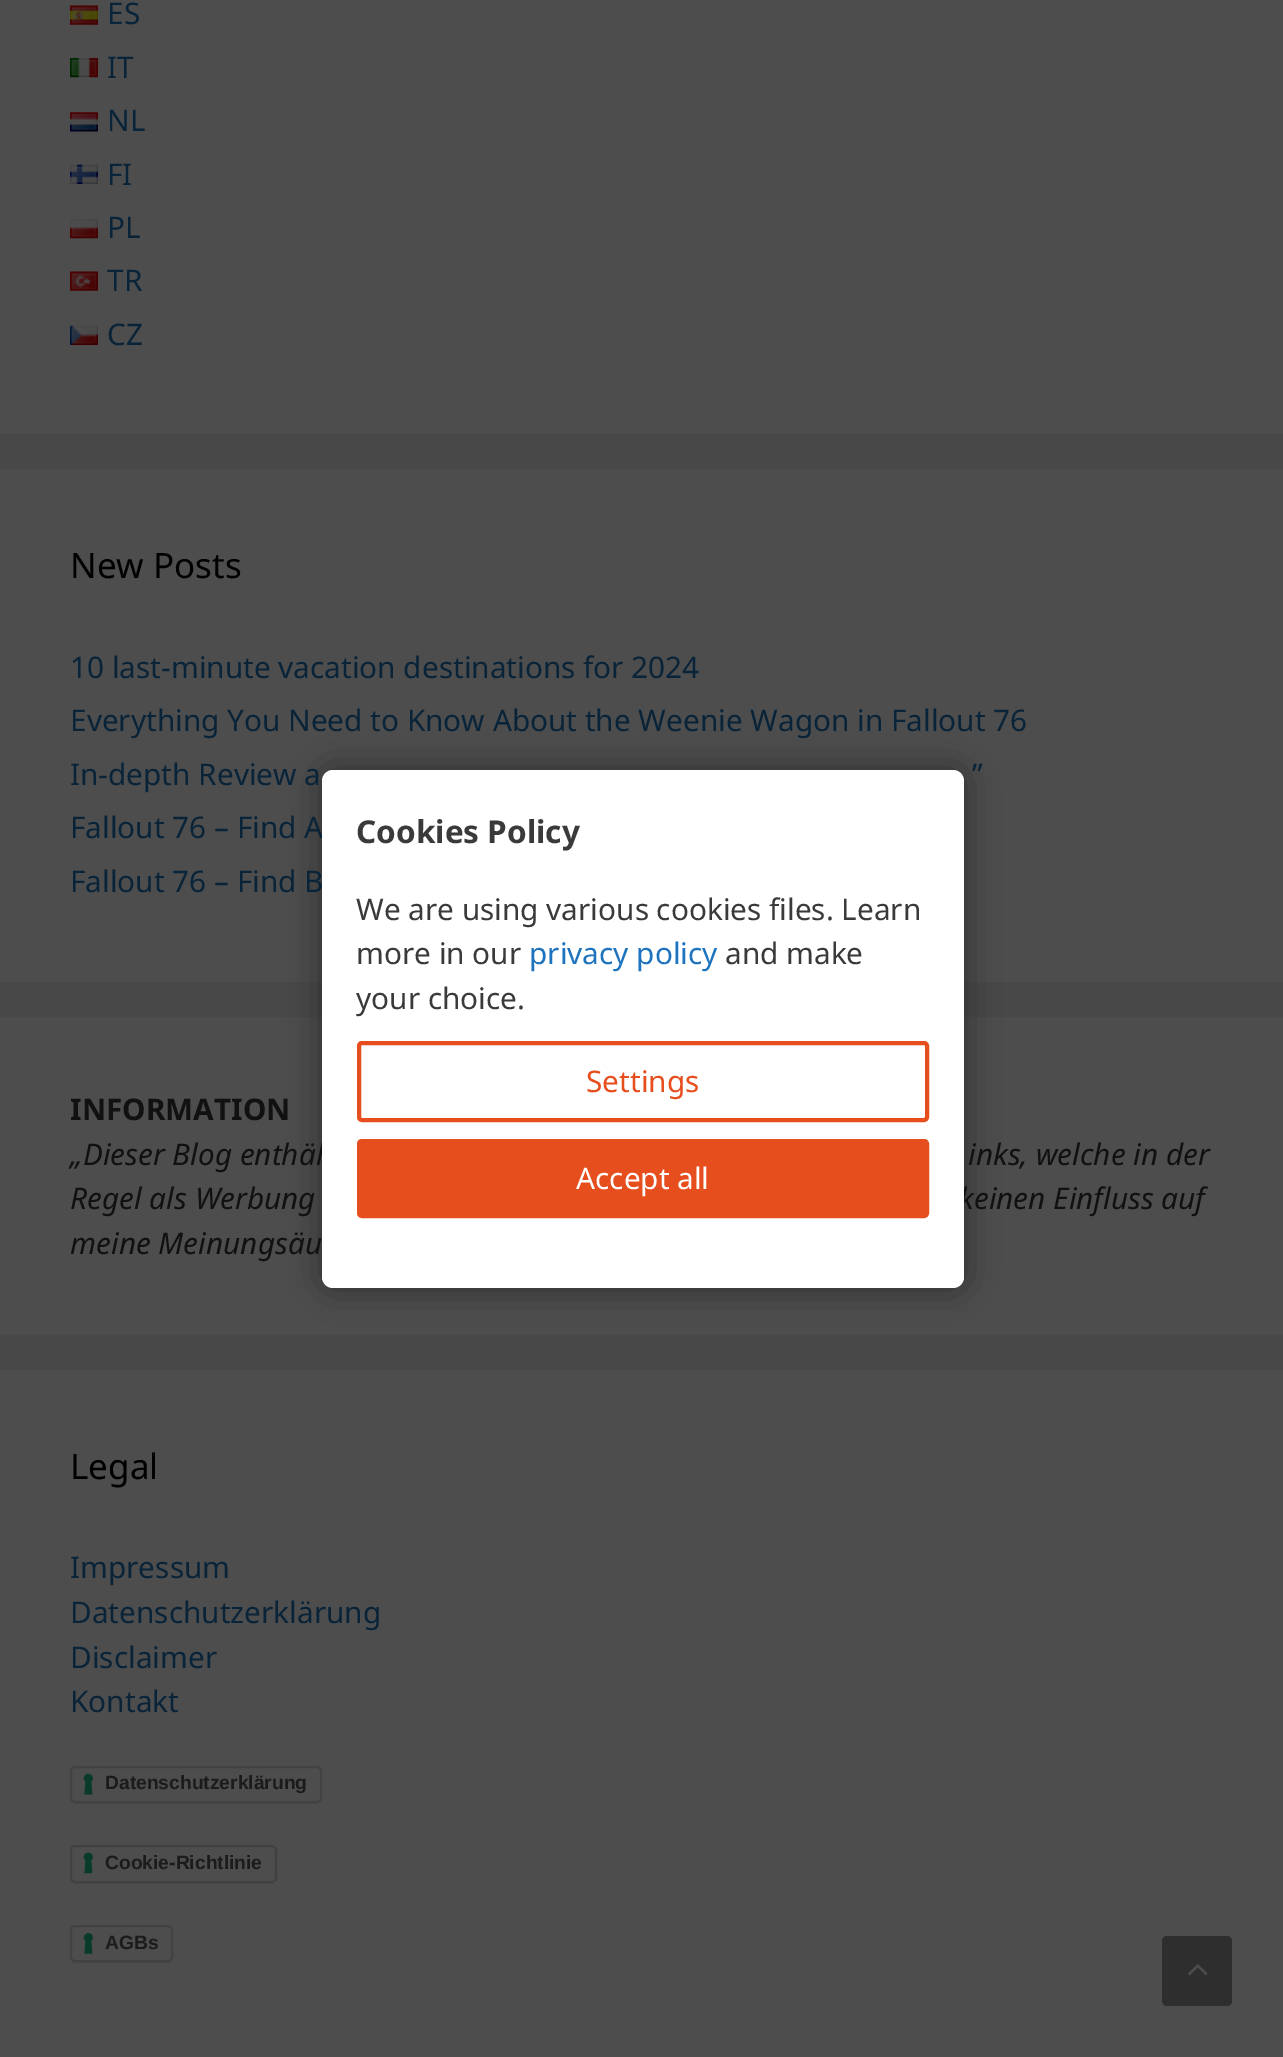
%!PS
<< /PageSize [1283 2057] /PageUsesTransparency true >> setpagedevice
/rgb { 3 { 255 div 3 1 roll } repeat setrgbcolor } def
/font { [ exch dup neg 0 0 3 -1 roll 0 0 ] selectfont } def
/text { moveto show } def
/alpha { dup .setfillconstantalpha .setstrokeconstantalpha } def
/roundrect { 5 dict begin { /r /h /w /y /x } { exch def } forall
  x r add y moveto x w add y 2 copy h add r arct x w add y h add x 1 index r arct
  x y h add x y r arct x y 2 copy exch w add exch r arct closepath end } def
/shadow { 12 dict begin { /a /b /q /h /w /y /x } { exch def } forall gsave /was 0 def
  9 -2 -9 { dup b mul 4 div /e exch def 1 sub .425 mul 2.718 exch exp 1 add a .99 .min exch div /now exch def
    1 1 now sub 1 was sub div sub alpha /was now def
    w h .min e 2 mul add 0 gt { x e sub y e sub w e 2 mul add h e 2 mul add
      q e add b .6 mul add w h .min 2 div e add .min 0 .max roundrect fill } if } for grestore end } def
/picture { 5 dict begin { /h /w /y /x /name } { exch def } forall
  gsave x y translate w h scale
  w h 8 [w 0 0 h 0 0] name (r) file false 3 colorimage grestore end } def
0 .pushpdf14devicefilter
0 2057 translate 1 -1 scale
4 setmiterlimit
72 72 72 rgb
0 0 1283 2057 rectfill
77 77 77 rgb
0 0 1283 434 rectfill
(img_01.rgb) 70 5 28 20 picture
(img_02.rgb) 70 58 28 20 picture
(img_03.rgb) 70 112 28 20 picture
(img_04.rgb) 70 164 28 20 picture
(img_05.rgb) 70 219 28 20 picture
(img_06.rgb) 70 271 28 20 picture
(img_07.rgb) 70 325 28 20 picture
0 469 1283 513 rectfill
0 1017 1283 318 rectfill
0 0 0 rgb
322 770 642 518 11 17.5 0.4 shadow
77 77 77 rgb
0 1370 1283 687 rectfill
0 0 0 rgb
72 1769 248 34 4 1 0.15 shadow
77 77 77 rgb
70 1766 252 37 5 roundrect fill
(img_08.rgb) 83 1773 10 22 picture
0.15 alpha
0 0 0 rgb
2 setlinewidth
71 1767 250 35 4 roundrect stroke
1 alpha
72 1848 203 35 4 1 0.15 shadow
77 77 77 rgb
70 1845 207 38 5 roundrect fill
(img_09.rgb) 83 1852 10 22 picture
65 65 65 rgb
71 1846 205 36 4 roundrect stroke
0 0 0 rgb
72 1929 100 33 4 1 0.15 shadow
77 77 77 rgb
70 1925 103 37 5 roundrect fill
(img_10.rgb) 83 1933 10 21 picture
0.15 alpha
0 0 0 rgb
71 1926 101 35 4 roundrect stroke
1 alpha
46 46 46 rgb
1162 1936 70 70 5 roundrect fill
(img_11.rgb) 1188 1964 20 12 picture
/NotoSans-Regular 29.75 font
9 35 57 rgb
(ES) 107 24 text
(IT) 107 78 text
(NL) 107 131 text
(FI) 107 185 text
(PL) 107 238 text
(TR) 107 291 text
(CZ) 107 345 text
/NotoSans-Regular 35 font
0 0 0 rgb
(New Posts) 70 578 text
/NotoSans-Regular 29.75 font
9 35 57 rgb
(10 last-minute vacation destinations for 2024) 70 678 text
(Everything You Need to Know About the Weenie Wagon in Fallout 76) 70 731 text
(In-depth Review a) 70 785 text
(”) 972 785 text
(Fallout 76 – Find A) 70 838 text
(Fallout 76 – Find B) 70 892 text
/NotoSans-Bold 29.75 font
17 17 17 rgb
(INFORMATION) 70 1120 text
/NotoSans-Italic 29.75 font
(„Dieser Blog enthäl) 70 1165 text
(inks, welche in der) 968 1165 text
(Regel als Werbung) 70 1209 text
(keinen Einfluss auf) 959 1209 text
(meine Meinungsäu) 70 1254 text
255 255 255 rgb
322 770 642 518 11 roundrect fill
/NotoSans-Bold 31.5 font
58 58 58 rgb
(Cookies Policy) 356 843 text
/NotoSans-Regular 29.75 font
(We are using various cookies files. Learn) 356 920 text
(more in our) 356 964 text
30 115 190 rgb
(privacy policy) 529 964 text
58 58 58 rgb
(and make) 725 964 text
(your choice.) 356 1009 text
231 78 30 rgb
4 setlinewidth
359 1043 568 77 3 roundrect stroke
(Settings) 586 1092 text
359 1141 568 75 3 roundrect gsave fill grestore
stroke
255 255 255 rgb
(Accept all) 576 1189 text
/NotoSans-Regular 35 font
0 0 0 rgb
(Legal) 70 1479 text
/NotoSans-Regular 29.75 font
9 35 57 rgb
(Impressum) 70 1578 text
(Datenschutzerklärung) 70 1623 text
(Disclaimer) 70 1668 text
(Kontakt) 70 1712 text
/LiberationSans-Bold 19.25 font
27 27 27 rgb
(Datenschutzerklärung) 105 1789 text
(Cookie-Richtlinie) 105 1869 text
(AGBs) 105 1949 text
.poppdf14devicefilter showpage
